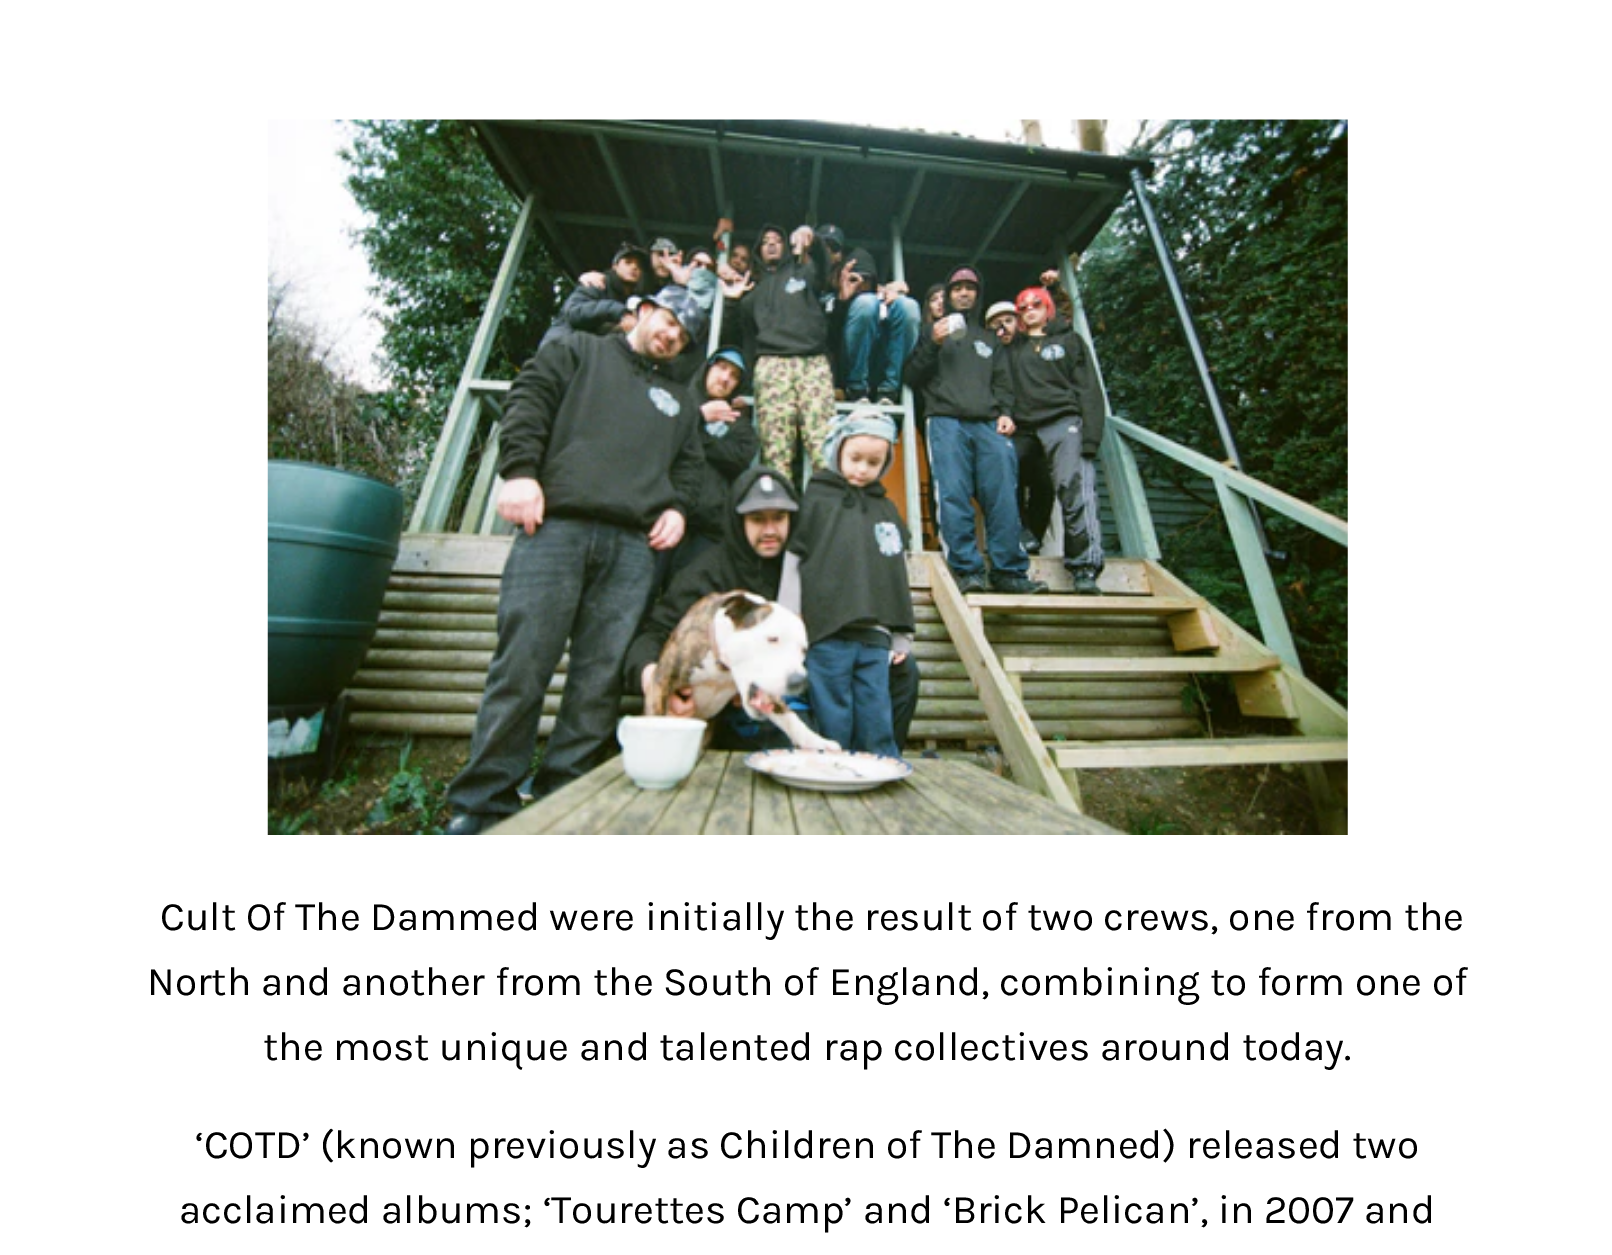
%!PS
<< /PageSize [1612 1255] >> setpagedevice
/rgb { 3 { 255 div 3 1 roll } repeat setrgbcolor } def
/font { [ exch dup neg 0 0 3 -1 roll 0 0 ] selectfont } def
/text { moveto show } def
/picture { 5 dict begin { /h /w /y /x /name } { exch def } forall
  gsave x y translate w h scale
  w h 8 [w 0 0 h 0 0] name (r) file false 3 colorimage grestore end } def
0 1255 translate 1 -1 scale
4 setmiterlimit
255 255 255 rgb
0 0 1612 1255 rectfill
(img_01.rgb) 267 119 1081 716 picture
/Karla-Regular 40.5 font
0 0 0 rgb
(Cult Of The Dammed were initially the result of two crews, one from the) 160 930 text
(North and another from the South of England, combining to form one of) 147 995 text
(the most unique and talented rap collectives around today.) 263 1060 text
(‘COTD’ \(known previously as Children of The Damned\) released two) 195 1158 text
(acclaimed albums; ‘Tourettes Camp’ and ‘Brick Pelican’, in 2007 and) 179 1223 text
showpage
